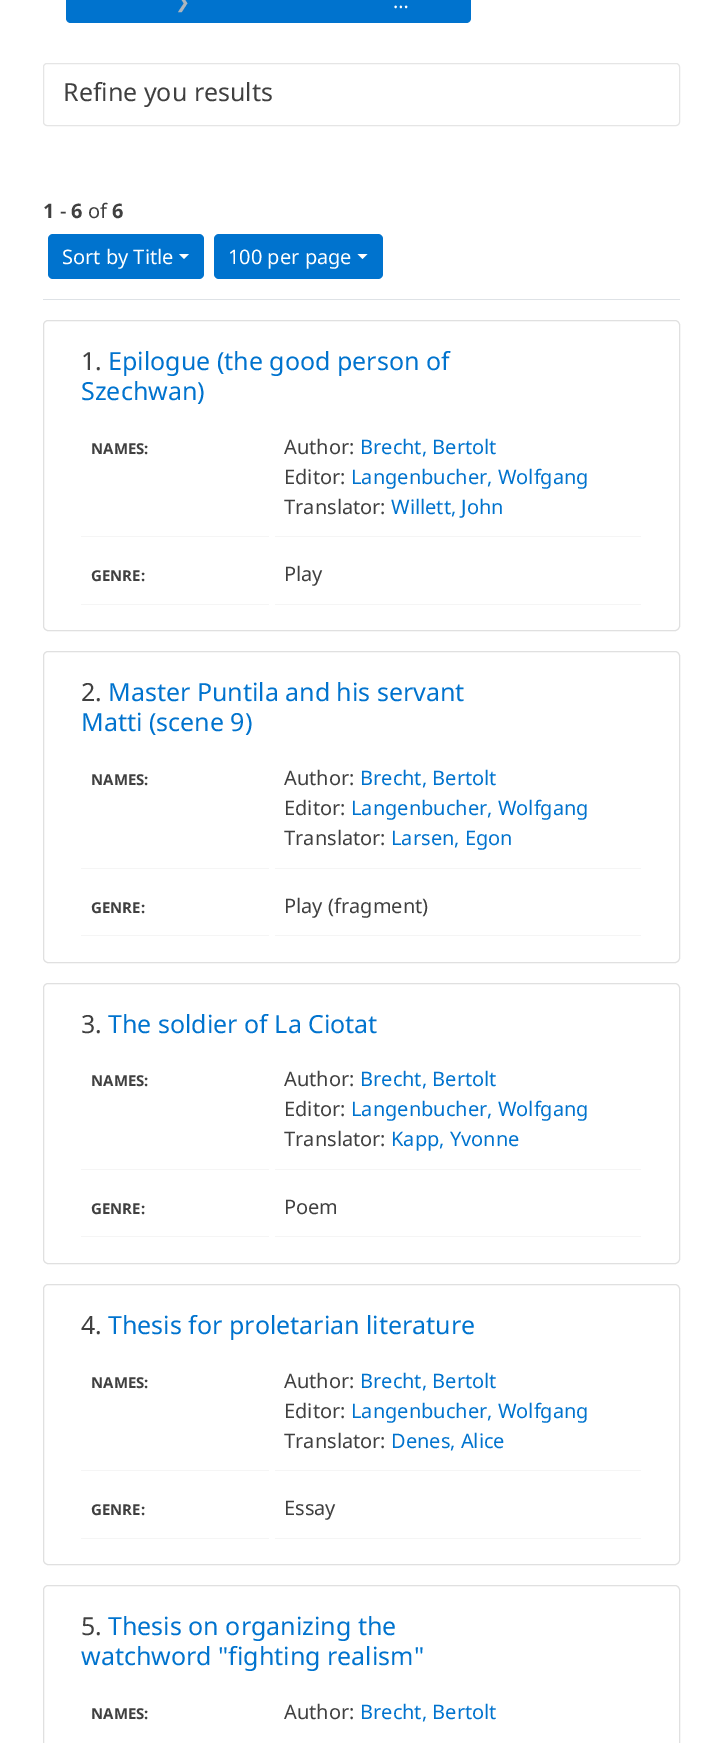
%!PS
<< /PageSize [721 1743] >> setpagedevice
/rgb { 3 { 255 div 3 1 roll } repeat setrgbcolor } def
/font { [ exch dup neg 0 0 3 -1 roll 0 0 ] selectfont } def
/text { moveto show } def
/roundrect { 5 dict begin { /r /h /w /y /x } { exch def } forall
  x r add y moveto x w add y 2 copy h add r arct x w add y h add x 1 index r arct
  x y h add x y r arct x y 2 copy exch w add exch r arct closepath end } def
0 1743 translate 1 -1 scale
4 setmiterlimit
255 255 255 rgb
0 0 721 1743 rectfill
0 115 206 rgb
71 -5 moveto 355 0 rlineto 0 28 rlineto -355 0 rlineto -3 0 -5 -2 -5 -5 rcurveto 0 -18 rlineto 0 -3 2 -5 5 -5 rcurveto closepath fill
425 -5 moveto 41 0 rlineto 3 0 5 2 5 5 rcurveto 0 18 rlineto 0 3 -2 5 -5 5 rcurveto -41 0 rlineto closepath fill
229 229 229 rgb
43.5 63.5 636 62 3.5 roundrect stroke
222 226 230 rgb
43 299 637 1 rectfill
0 115 206 rgb
48 234 156 45 5 roundrect fill
255 255 255 rgb
179 254 moveto 10 0 rlineto -5 5 rlineto closepath fill
0 115 206 rgb
214 234 169 45 5 roundrect fill
255 255 255 rgb
357.5 254 moveto 10 0 rlineto -5 5 rlineto closepath fill
224 224 224 rgb
43.5 320.5 636 310 4.5 roundrect stroke
245 245 245 rgb
81 536 188 1 rectfill
275 536 366 1 rectfill
81 604 188 1 rectfill
275 604 366 1 rectfill
224 224 224 rgb
43.5 651.5 636 311 4.5 roundrect stroke
245 245 245 rgb
81 868 188 1 rectfill
275 868 366 1 rectfill
81 935 188 1 rectfill
275 935 366 1 rectfill
224 224 224 rgb
43.5 983.5 636 280 4.5 roundrect stroke
245 245 245 rgb
81 1169 188 1 rectfill
275 1169 366 1 rectfill
81 1236 188 1 rectfill
275 1236 366 1 rectfill
224 224 224 rgb
43.5 1284.5 636 280 4.5 roundrect stroke
245 245 245 rgb
81 1470 188 1 rectfill
275 1470 366 1 rectfill
81 1538 188 1 rectfill
275 1538 366 1 rectfill
224 224 224 rgb
43.5 1585.5 636 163 4.5 roundrect stroke
/DejaVuSans-Regular 18 font
173 181 189 rgb
(❯) 175 8 text
/NotoSans-Regular 20 font
255 255 255 rgb
(…) 393 8 text
/NotoSans-Regular 25 font
64 64 64 rgb
(Refine you results) 63 101 text
/NotoSans-Bold 20 font
(1) 43 218 text
/NotoSans-Regular 20 font
(-) 60 218 text
/NotoSans-Bold 20 font
(6) 71 218 text
/NotoSans-Regular 20 font
(of) 88 218 text
/NotoSans-Bold 20 font
(6) 112 218 text
/NotoSans-Regular 20 font
255 255 255 rgb
(Sort by Title) 62 264 text
(100 per page) 228 264 text
/NotoSans-Regular 25 font
64 64 64 rgb
(1.) 81 370 text
0 115 206 rgb
(Epilogue \(the good person of) 108 370 text
(Szechwan\)) 81 400 text
/NotoSans-Bold 15 font
64 64 64 rgb
(NAMES:) 91 454 text
/NotoSans-Regular 20 font
(Author:) 284 454 text
0 115 206 rgb
(Brecht, Bertolt) 360 454 text
64 64 64 rgb
(Editor:) 284 484 text
0 115 206 rgb
(Langenbucher, Wolfgang) 351 484 text
64 64 64 rgb
(Translator:) 284 514 text
0 115 206 rgb
(Willett, John) 391 514 text
/NotoSans-Bold 15 font
64 64 64 rgb
(GENRE:) 91 581 text
/NotoSans-Regular 20 font
(Play) 284 581 text
/NotoSans-Regular 25 font
(2.) 81 701 text
0 115 206 rgb
(Master Puntila and his servant) 108 701 text
(Matti \(scene 9\)) 81 731 text
/NotoSans-Bold 15 font
64 64 64 rgb
(NAMES:) 91 785 text
/NotoSans-Regular 20 font
(Author:) 284 785 text
0 115 206 rgb
(Brecht, Bertolt) 360 785 text
64 64 64 rgb
(Editor:) 284 815 text
0 115 206 rgb
(Langenbucher, Wolfgang) 351 815 text
64 64 64 rgb
(Translator:) 284 845 text
0 115 206 rgb
(Larsen, Egon) 391 845 text
/NotoSans-Bold 15 font
64 64 64 rgb
(GENRE:) 91 913 text
/NotoSans-Regular 20 font
(Play \(fragment\)) 284 913 text
/NotoSans-Regular 25 font
(3.) 81 1033 text
0 115 206 rgb
(The soldier of La Ciotat) 108 1033 text
/NotoSans-Bold 15 font
64 64 64 rgb
(NAMES:) 91 1086 text
/NotoSans-Regular 20 font
(Author:) 284 1086 text
0 115 206 rgb
(Brecht, Bertolt) 360 1086 text
64 64 64 rgb
(Editor:) 284 1116 text
0 115 206 rgb
(Langenbucher, Wolfgang) 351 1116 text
64 64 64 rgb
(Translator:) 284 1146 text
0 115 206 rgb
(Kapp, Yvonne) 391 1146 text
/NotoSans-Bold 15 font
64 64 64 rgb
(GENRE:) 91 1214 text
/NotoSans-Regular 20 font
(Poem) 284 1214 text
/NotoSans-Regular 25 font
(4.) 81 1334 text
0 115 206 rgb
(Thesis for proletarian literature) 108 1334 text
/NotoSans-Bold 15 font
64 64 64 rgb
(NAMES:) 91 1388 text
/NotoSans-Regular 20 font
(Author:) 284 1388 text
0 115 206 rgb
(Brecht, Bertolt) 360 1388 text
64 64 64 rgb
(Editor:) 284 1418 text
0 115 206 rgb
(Langenbucher, Wolfgang) 351 1418 text
64 64 64 rgb
(Translator:) 284 1448 text
0 115 206 rgb
(Denes, Alice) 391 1448 text
/NotoSans-Bold 15 font
64 64 64 rgb
(GENRE:) 91 1515 text
/NotoSans-Regular 20 font
(Essay) 284 1515 text
/NotoSans-Regular 25 font
(5.) 81 1635 text
0 115 206 rgb
(Thesis on organizing the) 108 1635 text
(watchword "fighting realism") 81 1665 text
/NotoSans-Bold 15 font
64 64 64 rgb
(NAMES:) 91 1719 text
/NotoSans-Regular 20 font
(Author:) 284 1719 text
0 115 206 rgb
(Brecht, Bertolt) 360 1719 text
showpage
